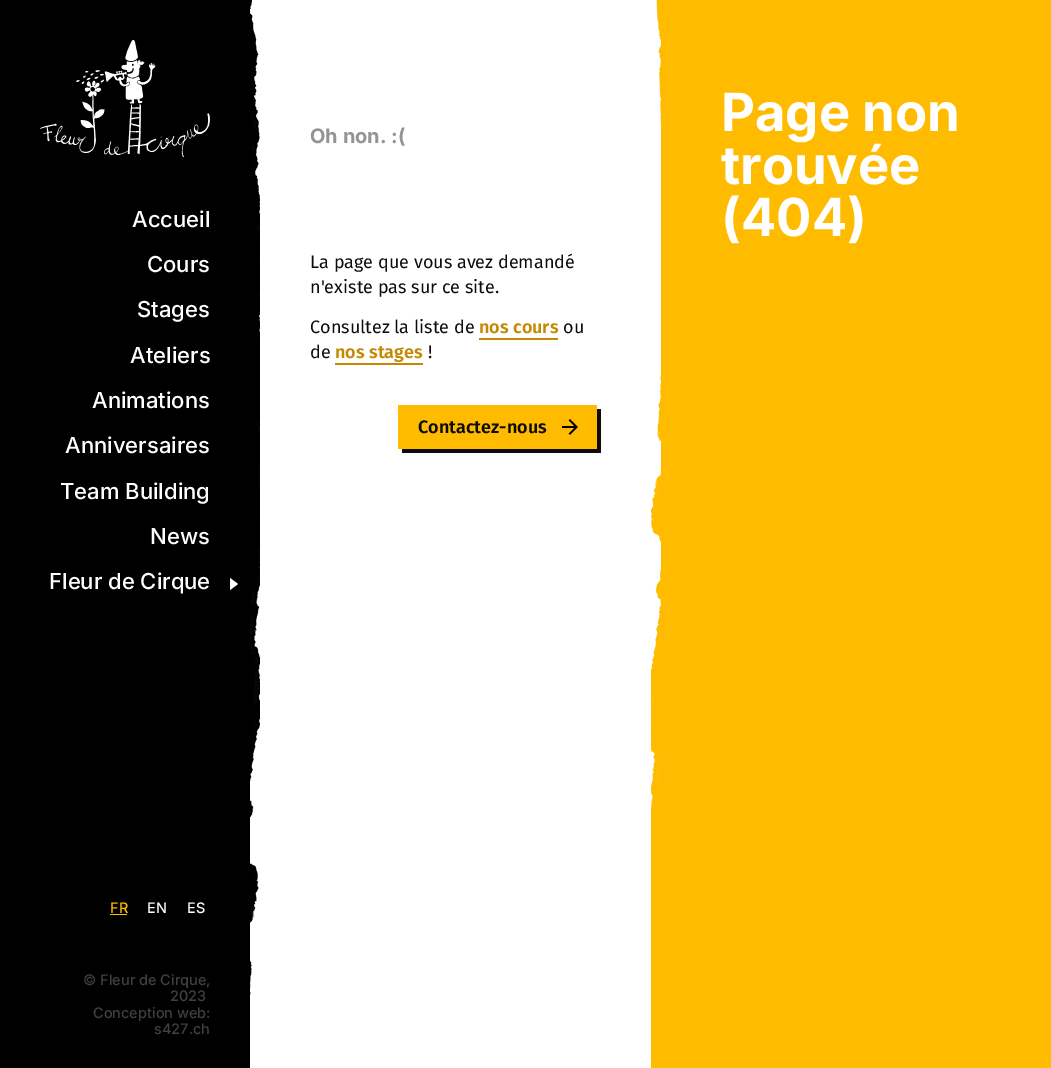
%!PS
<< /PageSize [1051 1068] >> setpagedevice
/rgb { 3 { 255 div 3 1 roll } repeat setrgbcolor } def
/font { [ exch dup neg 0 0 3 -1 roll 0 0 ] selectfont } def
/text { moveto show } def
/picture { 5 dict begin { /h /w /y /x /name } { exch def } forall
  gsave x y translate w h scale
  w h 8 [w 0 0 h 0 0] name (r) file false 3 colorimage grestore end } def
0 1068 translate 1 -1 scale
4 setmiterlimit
255 255 255 rgb
0 0 1051 1068 rectfill
255 187 0 rgb
651 0 400 1068 rectfill
(img_01.rgb) 651 0 10 820 picture
0 0 0 rgb
0 0 250 1068 rectfill
(img_02.rgb) 40 40 170 117 picture
255 255 255 rgb
230 590 moveto 0 -12 rlineto 8 6 rlineto closepath fill
255 187 0 rgb
110 914 17 1 rectfill
(img_03.rgb) 250 0 10 995 picture
196 137 0 rgb
479 338 79 2 rectfill
335 363 88 2 rectfill
13 12 9 rgb
402 449 moveto 0 4 rlineto 199 0 rlineto 0 -44 rlineto -4 0 rlineto 0 40 rlineto closepath fill
255 187 0 rgb
398 405 199 44 rectfill
(img_04.rgb) 562 419 16 16 picture
/Inter-Medium 22 font
255 255 255 rgb
(Accueil) 132 227 text
(Cours) 147 272 text
(Stages) 137 317 text
(Ateliers) 130 363 text
(Animations) 92 408 text
(Anniversaires) 65 453 text
(Team Building) 60 499 text
(News) 150 544 text
(Fleur de Cirque) 49 589 text
/Inter-Medium 14.5 font
255 187 0 rgb
(FR) 110 913 text
255 255 255 rgb
(EN) 147 913 text
(ES) 187 913 text
64 64 64 rgb
(© Fleur de Cirque,) 83 985 text
(2023) 170 1001 text
(Conception web:) 93 1018 text
(s427.ch) 154 1034 text
/Inter-Bold 20 font
148 148 148 rgb
(Oh non. :\() 310 143 text
/Inter-Bold 52.5 font
255 255 255 rgb
(Page non) 721 131 text
(trouvée) 721 184 text
(\(404\)) 721 236 text
/FiraSans-Regular 18 font
13 12 9 rgb
(La page que vous avez demandé) 310 268 text
(n'existe pas sur ce site.) 310 293 text
(Consultez la liste de) 310 333 text
/FiraSans-SemiBold 18 font
196 137 0 rgb
(nos cours) 479 333 text
/FiraSans-Regular 18 font
13 12 9 rgb
(ou) 563 333 text
(de) 310 358 text
/FiraSans-SemiBold 18 font
196 137 0 rgb
(nos stages) 335 358 text
/FiraSans-Regular 18 font
13 12 9 rgb
(!) 428 358 text
/FiraSans-SemiBold 18 font
(Contactez-nous) 418 433 text
showpage
